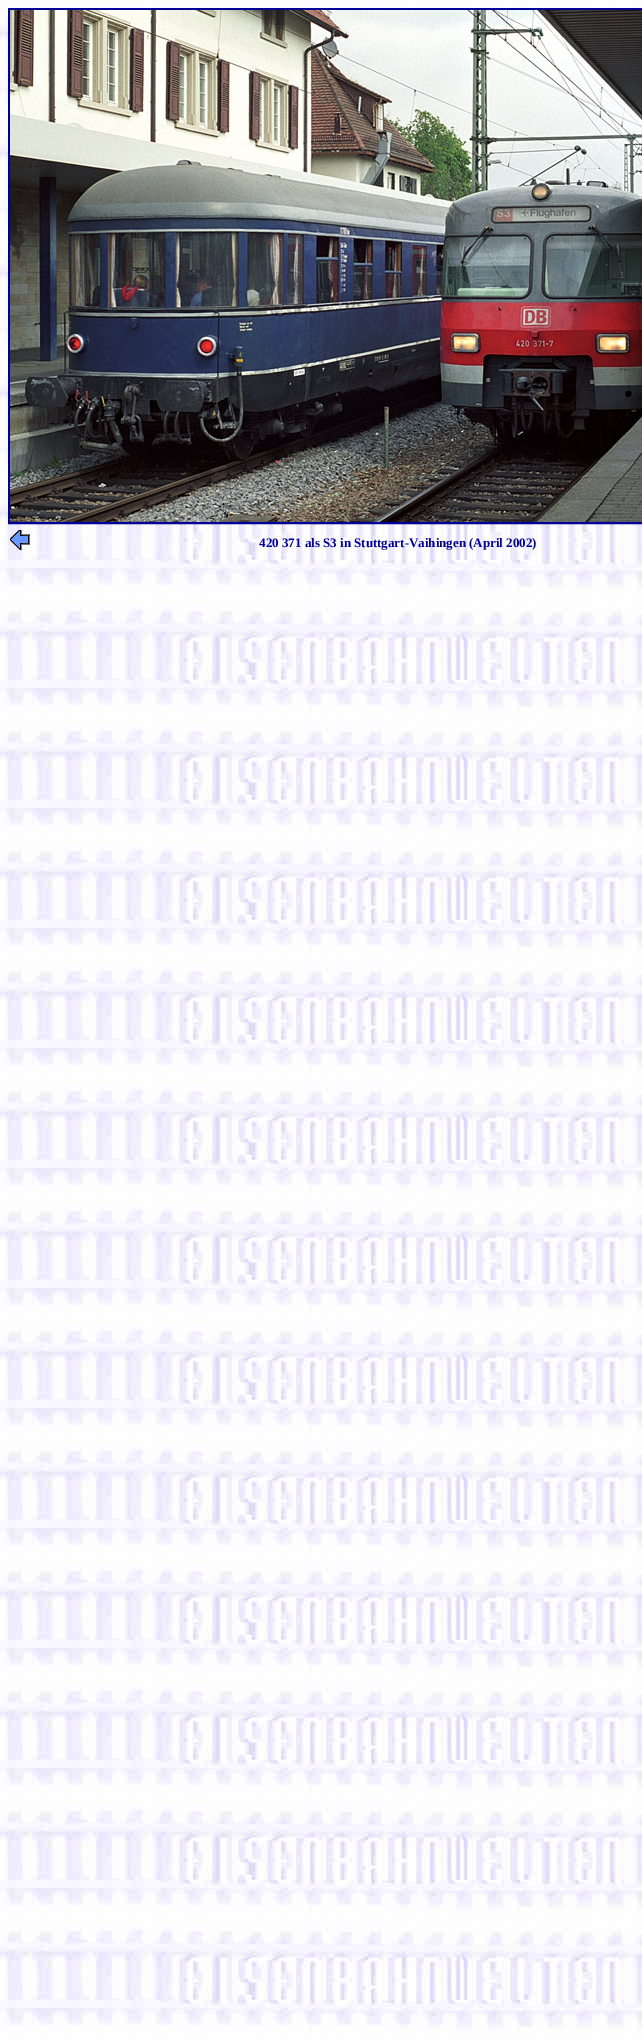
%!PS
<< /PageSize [642 2041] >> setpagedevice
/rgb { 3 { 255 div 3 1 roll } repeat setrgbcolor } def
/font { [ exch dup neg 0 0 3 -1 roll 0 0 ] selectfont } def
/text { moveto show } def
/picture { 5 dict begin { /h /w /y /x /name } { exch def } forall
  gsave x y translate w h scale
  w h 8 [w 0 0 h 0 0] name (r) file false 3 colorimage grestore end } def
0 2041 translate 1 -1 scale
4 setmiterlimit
255 255 255 rgb
0 0 642 2041 rectfill
(img_01.rgb) 0 0 642 2041 picture
0 0 153 rgb
2 setlinewidth
9 9 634 514 rectstroke
(img_02.rgb) 10 10 632 512 picture
(img_03.rgb) 10 530 20 20 picture
/LiberationSerif-Bold 13 font
(420 371 als S3 in Stuttgart-Vaihingen \(April 2002\)) 259 547 text
showpage
